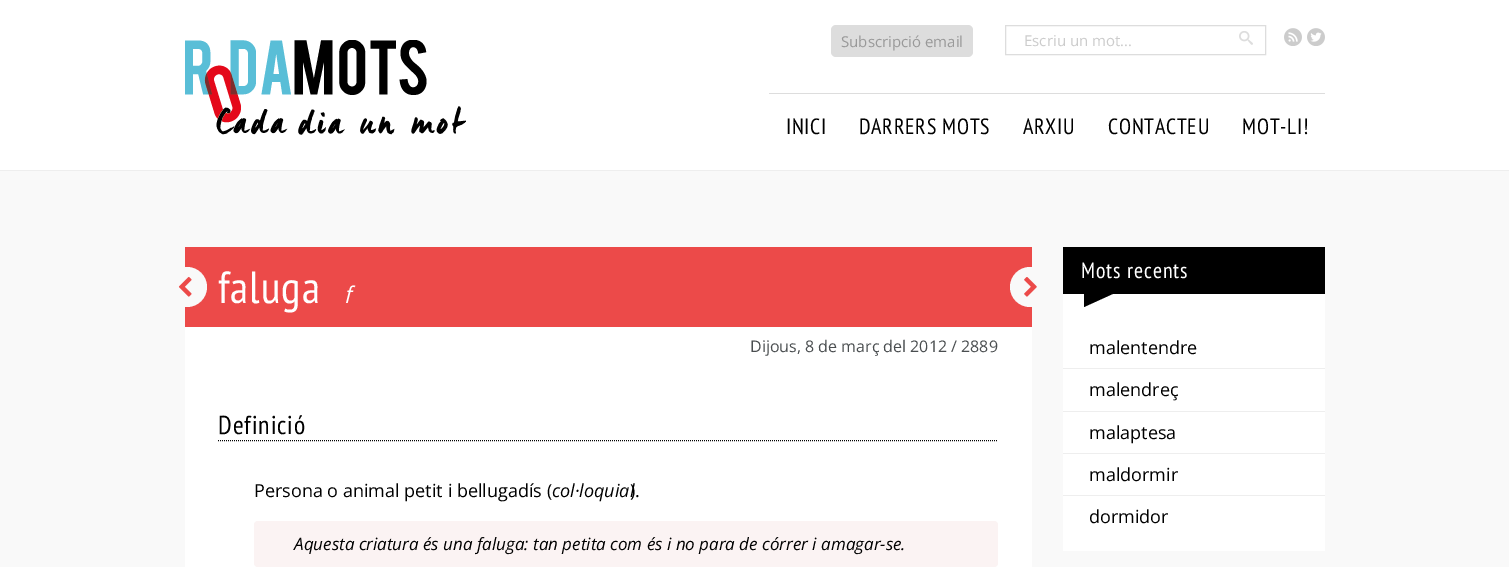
%!PS
<< /PageSize [1509 567] >> setpagedevice
/rgb { 3 { 255 div 3 1 roll } repeat setrgbcolor } def
/font { [ exch dup neg 0 0 3 -1 roll 0 0 ] selectfont } def
/text { moveto show } def
/circle { newpath 0 360 arc closepath } def
/roundrect { 5 dict begin { /r /h /w /y /x } { exch def } forall
  x r add y moveto x w add y 2 copy h add r arct x w add y h add x 1 index r arct
  x y h add x y r arct x y 2 copy exch w add exch r arct closepath end } def
/picture { 5 dict begin { /h /w /y /x /name } { exch def } forall
  gsave x y translate w h scale
  w h 8 [w 0 0 h 0 0] name (r) file false 3 colorimage grestore end } def
0 567 translate 1 -1 scale
4 setmiterlimit
249 249 249 rgb
0 0 1509 567 rectfill
255 255 255 rgb
0 0 1509 170 rectfill
221 221 221 rgb
831 25 142 32 5 roundrect fill
1005.5 25.5 260 29 rectstroke
(img_01.rgb) 1239 31 14 14 picture
(img_02.rgb) 1284 28 18 18 picture
(img_03.rgb) 1307 28 18 18 picture
238 238 238 rgb
0 170 1509 1 rectfill
(img_04.rgb) 185 40 281 95 picture
221 221 221 rgb
769 93 556 1 rectfill
236 74 73 rgb
185 247 847 80 rectfill
249 249 249 rgb
187 287 20 circle fill
(img_05.rgb) 178 276 14 21 picture
255 255 255 rgb
185 327 847 240 rectfill
0 0 0 rgb
[1 1] 0 setdash
218 440.5 moveto 780 0 rlineto stroke
251 243 243 rgb
254 521 744 46 4 roundrect fill
249 249 249 rgb
1030 287 20 circle fill
(img_06.rgb) 1024 277 13 20 picture
255 255 255 rgb
1063 294 262 257 rectfill
0 0 0 rgb
1063 247 262 47 rectfill
1084 307 moveto 0 -15 rlineto 33 0 rlineto closepath fill
238 238 238 rgb
1063 368 262 1 rectfill
1063 411 262 1 rectfill
1063 453 262 1 rectfill
1063 495 262 1 rectfill
/OpenSans-Regular 15 font
153 153 153 rgb
(Subscripció email) 841 47 text
204 204 204 rgb
(Escriu un mot...) 1024 46 text
/PTSansNarrow-Regular 22 font
0 0 0 rgb
786 134 moveto 0.75 0 (INICI) ashow
859 134 moveto 0.75 0 (DARRERS MOTS) ashow
1023 134 moveto 0.75 0 (ARXIU) ashow
1108 134 moveto 0.75 0 (CONTACTEU) ashow
1242 134 moveto 0.75 0 (MOT-LI!) ashow
/PTSansNarrow-Regular 45 font
255 255 255 rgb
218 303 moveto 0.9 0 (faluga) ashow
/PTSansNarrow-Italic 25 font
344 303 moveto 0.9 0 (f) ashow
/OpenSans-Regular 16 font
74 78 80 rgb
(Dijous, 8 de març del 2012 / 2889) 750 352 text
/PTSansNarrow-Regular 26 font
0 0 0 rgb
218 434 moveto 0.9 0 (Definició) ashow
/OpenSans-Regular 18 font
(Persona o animal petit i bellugadís \() 254 497 text
/OpenSans-Italic 18 font
(col·loquial) 552 497 text
/OpenSans-Regular 18 font
(\).) 630 497 text
/OpenSans-Italic 17 font
(Aquesta criatura és una faluga: tan petita com és i no para de córrer i amagar-se.) 294 550 text
/PTSansNarrow-Regular 22 font
255 255 255 rgb
1081 278 moveto 0.9 0 (Mots recents) ashow
/OpenSans-Regular 18 font
0 0 0 rgb
(malentendre) 1089 354 text
(malendreç) 1089 396 text
(malaptesa) 1089 439 text
(maldormir) 1089 481 text
(dormidor) 1089 523 text
showpage
